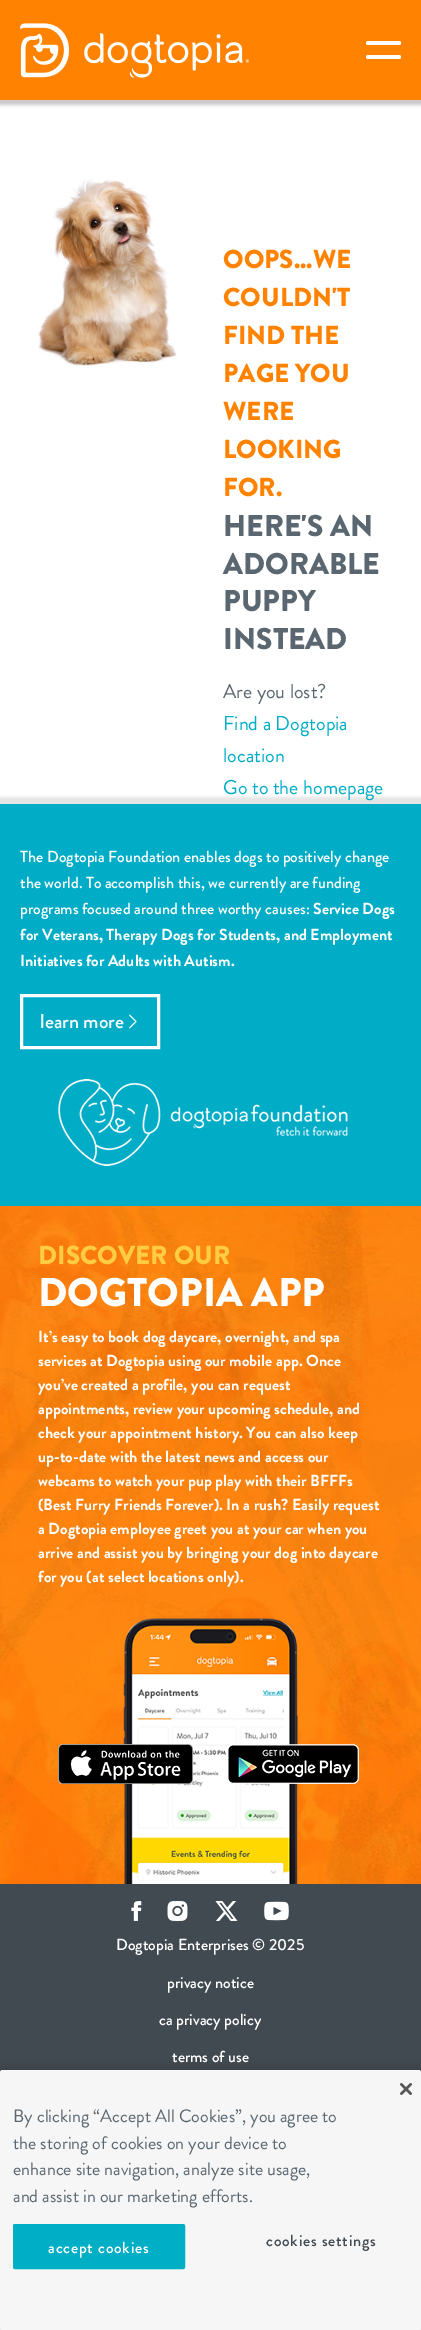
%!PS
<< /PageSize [421 2330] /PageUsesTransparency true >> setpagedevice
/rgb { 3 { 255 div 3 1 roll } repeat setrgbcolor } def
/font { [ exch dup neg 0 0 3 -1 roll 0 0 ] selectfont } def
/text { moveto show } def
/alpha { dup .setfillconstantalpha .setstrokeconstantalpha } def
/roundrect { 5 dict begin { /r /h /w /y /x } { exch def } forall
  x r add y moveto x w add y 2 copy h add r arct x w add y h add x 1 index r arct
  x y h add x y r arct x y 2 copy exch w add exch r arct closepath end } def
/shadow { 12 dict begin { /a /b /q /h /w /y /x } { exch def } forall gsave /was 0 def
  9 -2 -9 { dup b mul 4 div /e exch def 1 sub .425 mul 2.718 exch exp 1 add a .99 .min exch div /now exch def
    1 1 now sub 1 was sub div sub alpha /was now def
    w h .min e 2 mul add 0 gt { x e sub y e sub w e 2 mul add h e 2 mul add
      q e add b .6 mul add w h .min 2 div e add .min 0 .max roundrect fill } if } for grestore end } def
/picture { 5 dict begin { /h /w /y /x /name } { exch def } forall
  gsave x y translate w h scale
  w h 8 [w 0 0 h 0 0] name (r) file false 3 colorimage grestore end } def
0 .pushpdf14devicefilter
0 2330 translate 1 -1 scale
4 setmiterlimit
255 255 255 rgb
0 0 421 2330 rectfill
0 0 0 rgb
-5 -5 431 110 0 1.5 0.2 shadow
255 130 0 rgb
0 0 421 100 rectfill
(img_01.rgb) 20 23 229 55 picture
255 255 255 rgb
366 41 35 4 2 roundrect fill
366 55 35 4 2 roundrect fill
(img_02.rgb) 38 179 139 187 picture
0 0 0 rgb
-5 797 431 412 0 1.5 0.1 shadow
0 172 198 rgb
0 804 421 402 rectfill
255 255 255 rgb
3 setlinewidth
21.5 995.5 137 52 rectstroke
(img_03.rgb) 129 1014 8 15 picture
(img_04.rgb) 58 1079 290 87 picture
(img_05.rgb) 0 1206 421 678 picture
(img_08.rgb) 123 1618 175 266 picture
(img_06.rgb) 58 1744 135 40 picture
(img_07.rgb) 228 1744 131 40 picture
66 74 81 rgb
0 1884 421 189 rectfill
(img_09.rgb) 131 1901 11 20 picture
(img_10.rgb) 167 1901 21 20 picture
(img_11.rgb) 215 1901 23 20 picture
(img_12.rgb) 264 1901 25 20 picture
0 0 0 rgb
-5 2066 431 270 8 5.5 0.12 shadow
246 246 246 rgb
0 2070 421 260 2.5 roundrect fill
(img_13.rgb) 400 2083 12 12 picture
0 174 198 rgb
13.5 2224.5 171 44 1.5 roundrect gsave fill grestore
1 setlinewidth
stroke
/BrandonGrotesque-Black 26 font
255 130 0 rgb
(OOPS...WE) 223 268 text
(COULDN'T) 223 306 text
(FIND THE) 223 344 text
(PAGE YOU) 223 382 text
(WERE) 223 420 text
(LOOKING) 223 458 text
(FOR.) 223 496 text
/BrandonGrotesque-Black 30 font
91 103 112 rgb
(HERE'S AN) 223 536 text
(ADORABLE) 223 574 text
(PUPPY) 223 611 text
(INSTEAD) 223 649 text
/BrandonGrotesque-Regular 20 font
(Are you lost?) 223 698 text
0 172 198 rgb
(Find a Dogtopia) 223 730 text
(location) 223 762 text
(Go to the homepage) 223 794 text
/BrandonGrotesque-Medium 16 font
255 255 255 rgb
(The Dogtopia Foundation enables dogs to positively change) 20 862 text
(the world. To accomplish this, we currently are funding) 20 888 text
(programs focused around three worthy causes:) 20 914 text
/BrandonGrotesque-Bold 16 font
(Service Dogs) 313 914 text
(for Veterans, Therapy Dogs for Students, and Employment) 20 940 text
(Initiatives for Adults with Autism.) 20 966 text
/BrandonGrotesque-Medium 20 font
(learn more) 40 1028 text
/BrandonGrotesque-Black 26 font
255 204 66 rgb
(DISCOVER OUR) 38 1264 text
/BrandonGrotesque-Black 40 font
255 255 255 rgb
(DOGTOPIA APP) 38 1306 text
/BrandonGrotesque-Bold 16 font
(It’s easy to book dog daycare, overnight, and spa) 38 1342 text
(services at Dogtopia using our mobile app. Once) 38 1366 text
(you’ve created a profile, you can request) 38 1390 text
(appointments, review your upcoming schedule, and) 38 1414 text
(check your appointment history. You can also keep) 38 1438 text
(up-to-date with the latest news and access our) 38 1462 text
(webcams to watch your pup play with their BFFFs) 38 1486 text
(\(Best Furry Friends Forever\). In a rush? Easily request) 38 1510 text
(a Dogtopia employee greet you at your car when you) 38 1534 text
(arrive and assist you by bringing your dog into daycare) 38 1558 text
(for you \(at select locations only\).) 38 1582 text
/BrandonGrotesque-Medium 16 font
(Dogtopia Enterprises © 2025) 116 1950 text
(privacy notice) 167 1988 text
(ca privacy policy) 159 2025 text
(terms of use) 172 2062 text
/BrandonGrotesque-Regular 18 font
91 103 112 rgb
(By clicking “Accept All Cookies”, you agree to) 13 2122 text
(the storing of cookies on your device to) 13 2149 text
(enhance site navigation, analyze site usage,) 13 2175 text
(and assist in our marketing efforts.) 13 2202 text
/BrandonGrotesque-Medium 16 font
255 255 255 rgb
48 2253 moveto 0.75 0 (accept cookies) ashow
66 74 81 rgb
266 2246 moveto 0.75 0 (cookies settings) ashow
.poppdf14devicefilter showpage
